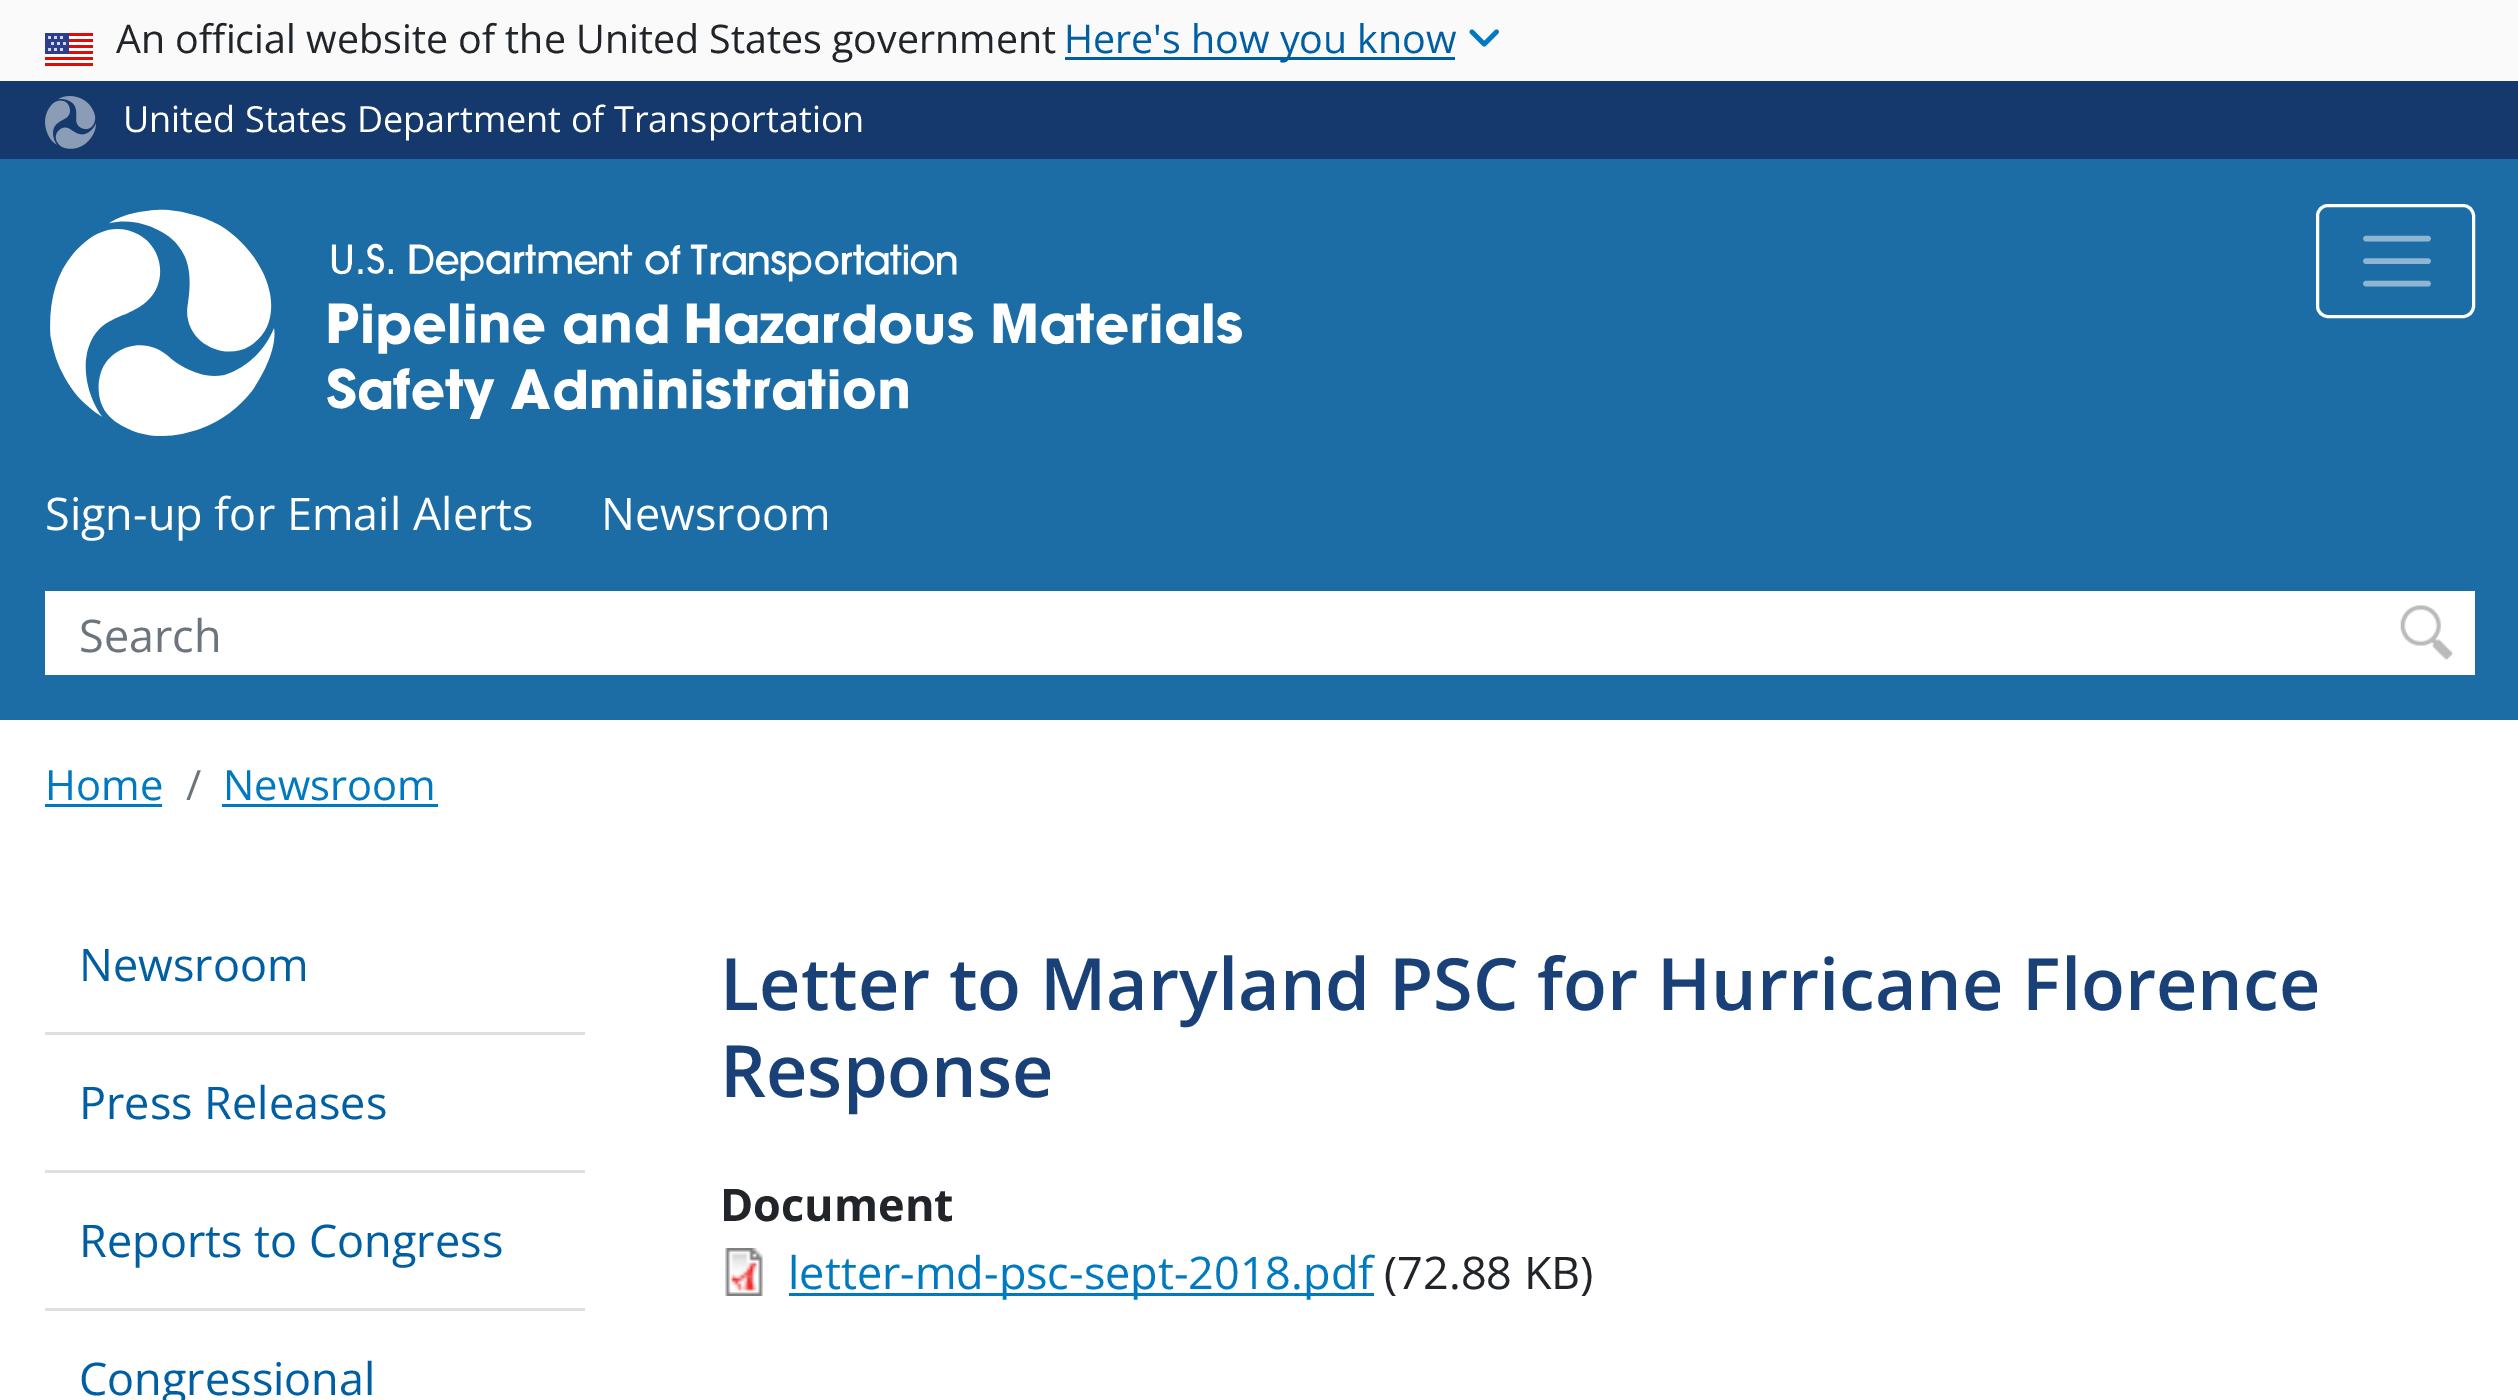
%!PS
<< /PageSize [2518 1400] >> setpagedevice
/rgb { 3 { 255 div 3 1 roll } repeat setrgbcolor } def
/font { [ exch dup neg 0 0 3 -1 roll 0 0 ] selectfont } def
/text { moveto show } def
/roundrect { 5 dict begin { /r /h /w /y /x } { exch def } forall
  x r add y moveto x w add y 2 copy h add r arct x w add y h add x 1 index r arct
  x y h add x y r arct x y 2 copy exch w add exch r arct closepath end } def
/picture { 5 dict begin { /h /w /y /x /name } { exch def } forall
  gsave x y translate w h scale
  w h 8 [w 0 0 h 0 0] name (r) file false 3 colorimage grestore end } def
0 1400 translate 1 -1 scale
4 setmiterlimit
255 255 255 rgb
0 0 2518 1400 rectfill
250 250 250 rgb
0 0 2518 81 rectfill
(img_01.rgb) 45 33 48 33 picture
0 94 162 rgb
1065 57 390 3 rectfill
(img_02.rgb) 1469 29 30 18 picture
21 57 108 rgb
0 81 2518 78 rectfill
(img_03.rgb) 45 96 51 53 picture
28 109 166 rgb
0 159 2518 561 rectfill
(img_04.rgb) 50 209 1192 227 picture
255 255 255 rgb
3 setlinewidth
2317.5 205.5 156 111 10.5 roundrect stroke
142 182 211 rgb
5.6 setlinewidth
1 setlinecap
2366 238.5 moveto 62 0 rlineto 2366 261 moveto 62 0 rlineto 2366 283.5 moveto 62 0 rlineto stroke
255 255 255 rgb
45 591 2430 84 rectfill
(img_05.rgb) 2400 605 54 55 picture
0 121 192 rgb
45 804 117 3 rectfill
222 804 216 3 rectfill
223 223 223 rgb
45 1032 540 3 rectfill
45 1170 540 3 rectfill
45 1308 540 3 rectfill
(img_06.rgb) 725 1248 38 48 picture
0 121 192 rgb
789 1293 585 3 rectfill
/OpenSans-Regular 39.4 font
33 37 41 rgb
(An official website of the United States government) 116 53 text
0 94 162 rgb
(Here's how you know) 1064 53 text
/OpenSans-Regular 36 font
255 255 255 rgb
(United States Department of Transportation) 123 132 text
/OpenSans-Regular 45 font
(Sign-up for Email Alerts) 45 530 text
(Newsroom) 601 530 text
108 117 125 rgb
(Search) 79 652 text
/OpenSans-Regular 41.75 font
0 121 192 rgb
(Home) 45 800 text
108 117 125 rgb
(/) 186 800 text
0 121 192 rgb
(Newsroom) 223 800 text
/OpenSans-Regular 45 font
0 94 162 rgb
(Newsroom) 79 981 text
(Press Releases) 79 1119 text
(Reports to Congress) 79 1257 text
(Congressional) 79 1395 text
/OpenSans-SemiBold 72 font
25 65 120 rgb
(Letter to Maryland PSC for Hurricane Florence) 720 1010 text
(Response) 720 1097 text
/OpenSans-Bold 45 font
33 37 41 rgb
(Document) 720 1221 text
/OpenSans-Regular 45 font
0 121 192 rgb
(letter-md-psc-sept-2018.pdf) 788 1289 text
33 37 41 rgb
(\(72.88 KB\)) 1384 1289 text
showpage
